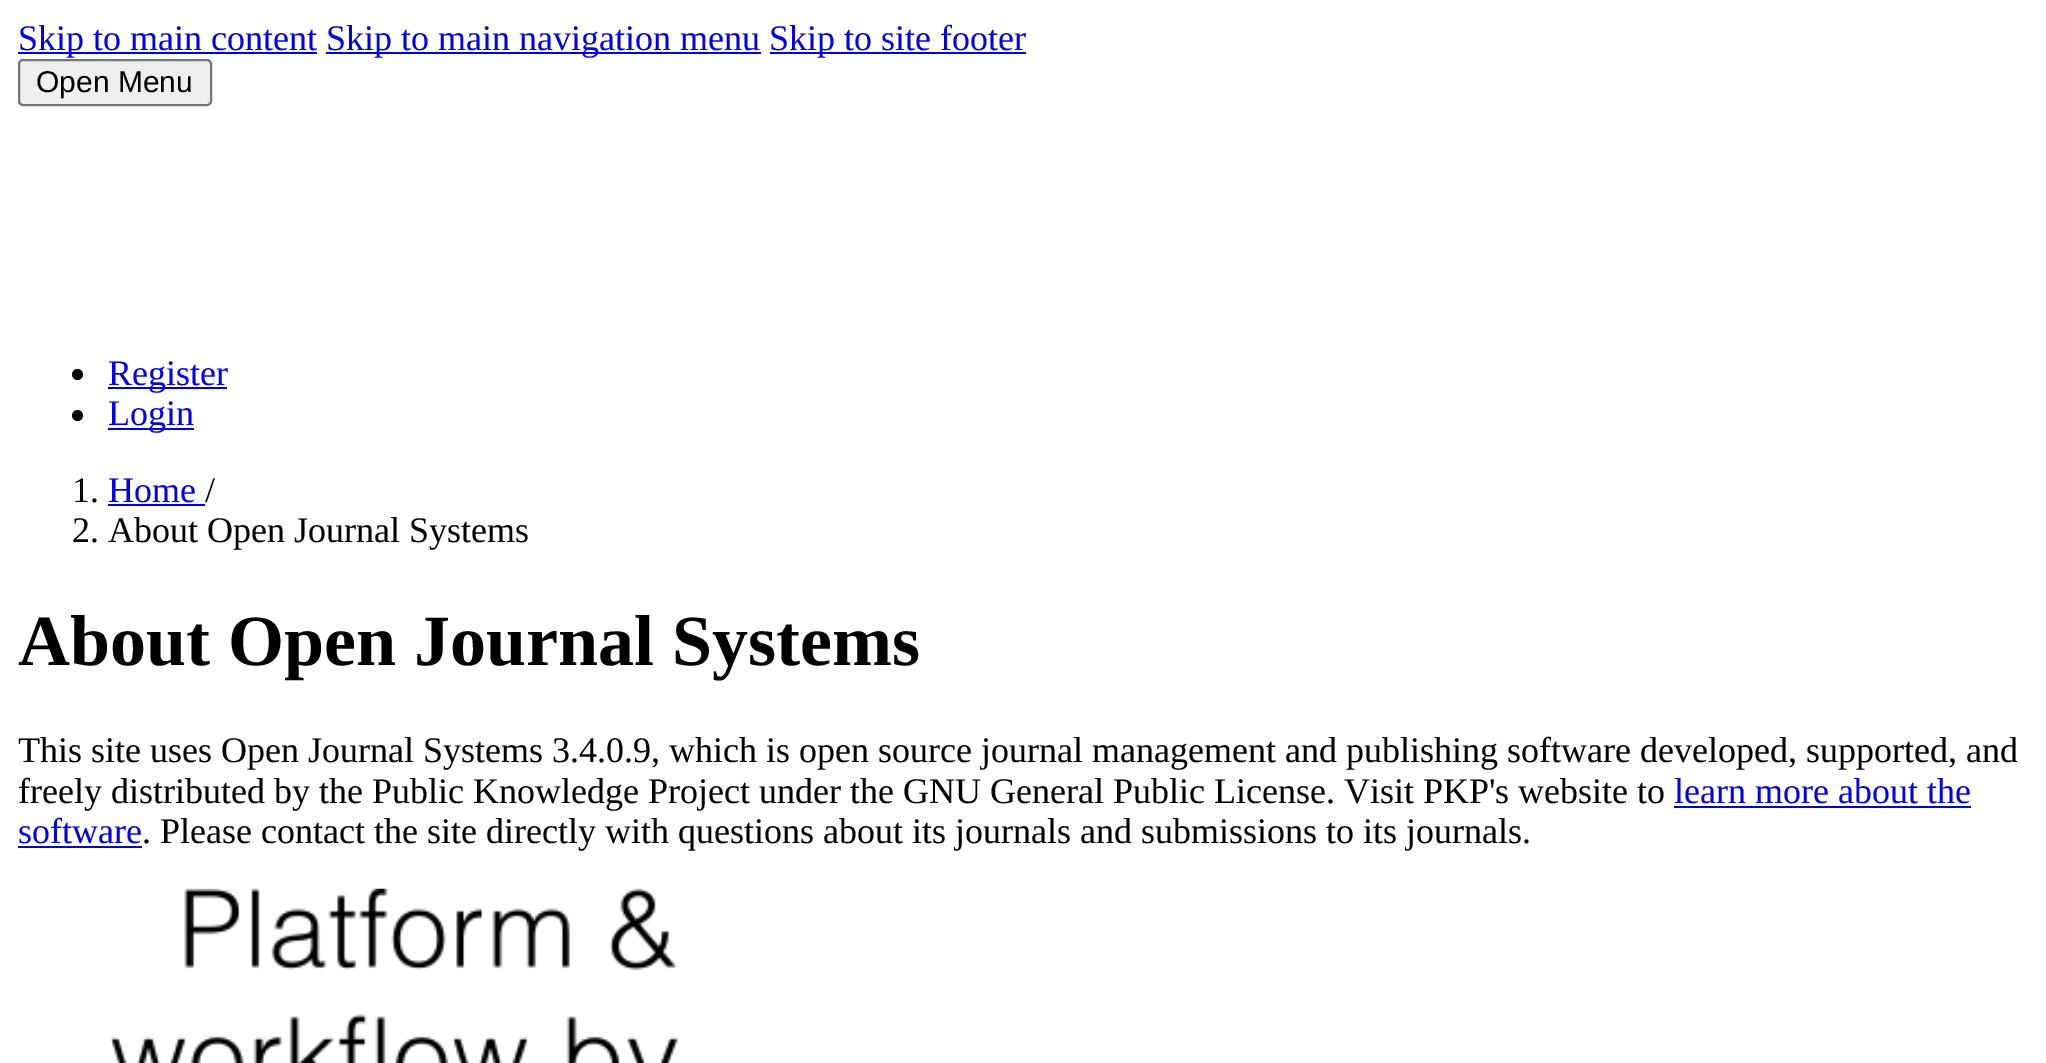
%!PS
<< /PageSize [2046 1063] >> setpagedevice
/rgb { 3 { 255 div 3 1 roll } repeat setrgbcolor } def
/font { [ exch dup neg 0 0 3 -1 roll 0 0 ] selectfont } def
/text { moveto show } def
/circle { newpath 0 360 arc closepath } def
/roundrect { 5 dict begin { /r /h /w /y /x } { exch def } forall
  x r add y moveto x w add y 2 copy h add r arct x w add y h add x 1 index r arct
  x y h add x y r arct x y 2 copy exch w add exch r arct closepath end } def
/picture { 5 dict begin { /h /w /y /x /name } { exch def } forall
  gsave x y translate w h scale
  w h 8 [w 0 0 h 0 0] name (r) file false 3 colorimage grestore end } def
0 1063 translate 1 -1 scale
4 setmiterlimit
255 255 255 rgb
0 0 2046 1063 rectfill
0 0 238 rgb
18 52 299 2 rectfill
326 52 435 2 rectfill
770 52 256 2 rectfill
239 239 239 rgb
19 60 192 45 4 roundrect gsave fill grestore
118 118 118 rgb
2 setlinewidth
stroke
0 0 0 rgb
77.5 374.5 5.5 circle fill
0 0 238 rgb
108 387 119 2 rectfill
0 0 0 rgb
77.5 415.5 5.5 circle fill
0 0 238 rgb
108 428 86 2 rectfill
108 504 97 2 rectfill
1674 806 297 2 rectfill
18 846 124 2 rectfill
(img_01.rgb) 110 888 568 175 picture
/LiberationSerif-Regular 36 font
(Skip to main content) 18 50 text
(Skip to main navigation menu) 326 50 text
(Skip to site footer) 769 50 text
/LiberationSans-Regular 30 font
0 0 0 rgb
(Open Menu) 36 92 text
/LiberationSerif-Regular 36 font
0 0 238 rgb
(Register) 108 385 text
(Login) 108 425 text
0 0 0 rgb
(1.) 72 502 text
0 0 238 rgb
(Home) 108 502 text
0 0 0 rgb
(/) 205 502 text
(2. About Open Journal Systems) 72 542 text
/LiberationSerif-Bold 72 font
(About Open Journal Systems) 18 665 text
/LiberationSerif-Regular 36 font
(This site uses Open Journal Systems 3.4.0.9, which is open source journal management and publishing software developed, supported, and) 18 762 text
(freely distributed by the Public Knowledge Project under the GNU General Public License. Visit PKP's website to) 18 803 text
0 0 238 rgb
(learn more about the) 1674 803 text
(software) 18 843 text
0 0 0 rgb
(. Please contact the site directly with questions about its journals and submissions to its journals.) 142 843 text
showpage
